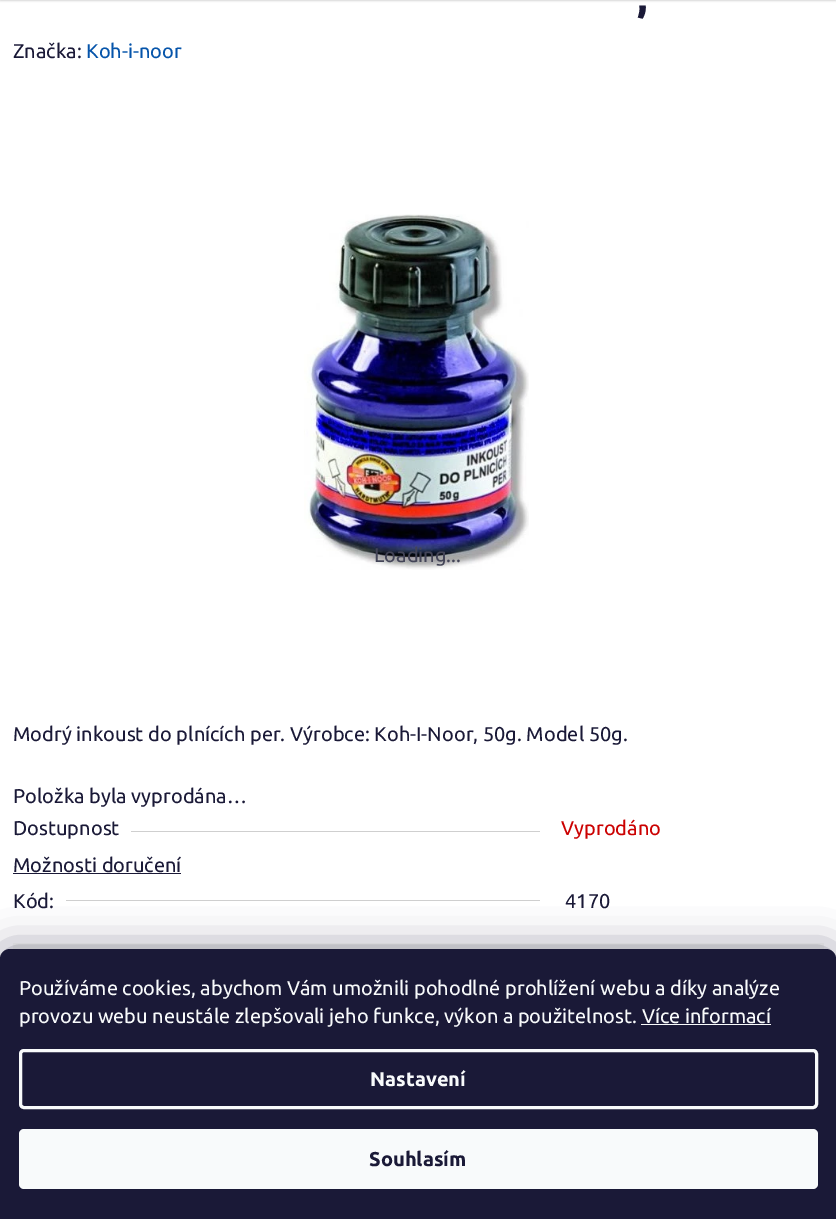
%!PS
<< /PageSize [836 1219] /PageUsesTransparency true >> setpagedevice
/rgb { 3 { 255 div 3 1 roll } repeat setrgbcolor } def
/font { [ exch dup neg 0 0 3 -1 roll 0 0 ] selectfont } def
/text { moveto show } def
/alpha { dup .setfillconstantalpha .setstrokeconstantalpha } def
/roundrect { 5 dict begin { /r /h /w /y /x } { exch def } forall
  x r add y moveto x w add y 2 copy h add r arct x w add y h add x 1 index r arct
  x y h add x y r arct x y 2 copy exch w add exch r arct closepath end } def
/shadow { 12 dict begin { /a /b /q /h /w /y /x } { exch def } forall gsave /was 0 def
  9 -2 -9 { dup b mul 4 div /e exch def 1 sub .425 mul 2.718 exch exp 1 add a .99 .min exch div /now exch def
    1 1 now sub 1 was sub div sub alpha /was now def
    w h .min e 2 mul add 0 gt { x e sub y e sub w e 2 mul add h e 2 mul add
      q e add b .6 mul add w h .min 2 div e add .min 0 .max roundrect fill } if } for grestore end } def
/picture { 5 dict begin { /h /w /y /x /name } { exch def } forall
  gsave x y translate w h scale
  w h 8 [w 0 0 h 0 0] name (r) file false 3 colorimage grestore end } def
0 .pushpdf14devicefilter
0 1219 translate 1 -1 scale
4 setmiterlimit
255 255 255 rgb
0 0 836 1219 rectfill
0 0 0 rgb
0 -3 836 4 0 1 0.16 shadow
(img_01.rgb) 304 214 225 356 picture
207 207 207 rgb
131 831 409 1 rectfill
26 25 55 rgb
13 873 168 1 rectfill
207 207 207 rgb
66 900 474 1 rectfill
247 247 247 rgb
13 943 811 6 rectfill
27 25 57 rgb
0 949 836 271 10 19 0.5 shadow
26 25 55 rgb
10 949 moveto 816 0 rlineto 5.5 0 10 4.5 10 10 rcurveto 0 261 rlineto -836 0 rlineto 0 -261 rlineto 0 -5.5 4.5 -10 10 -10 rcurveto closepath fill
248 250 251 rgb
641 1024 130 1 rectfill
3 setlinewidth
20.5 1050.5 796 57 3.5 roundrect stroke
19 1129 799 60 5 roundrect fill
/Ubuntu-Bold 42 font
26 25 55 rgb
(,) 637 12 text
/Ubuntu-Regular 20 font
(Značka:) 13 58 text
5 84 170 rgb
(Koh-i-noor) 86 58 text
67 68 87 rgb
(Loading...) 374 562 text
26 25 55 rgb
(Modrý inkoust do plnících per. Výrobce: Koh-I-Noor, 50g. Model 50g.) 13 741 text
(Položka byla vyprodána…) 13 803 text
(Dostupnost) 13 835 text
203 0 0 rgb
(Vyprodáno) 561 835 text
26 25 55 rgb
(Možnosti doručení) 13 872 text
(Kód:) 13 908 text
(4170) 565 908 text
248 250 251 rgb
(Používáme cookies, abychom Vám umožnili pohodlné prohlížení webu a díky analýze) 19 995 text
(provozu webu neustále zlepšovali jeho funkce, výkon a použitelnost. Více informací) 19 1023 text
/Ubuntu-Bold 20 font
(Nastavení) 370 1086 text
26 25 55 rgb
(Souhlasím) 369 1166 text
.poppdf14devicefilter showpage
